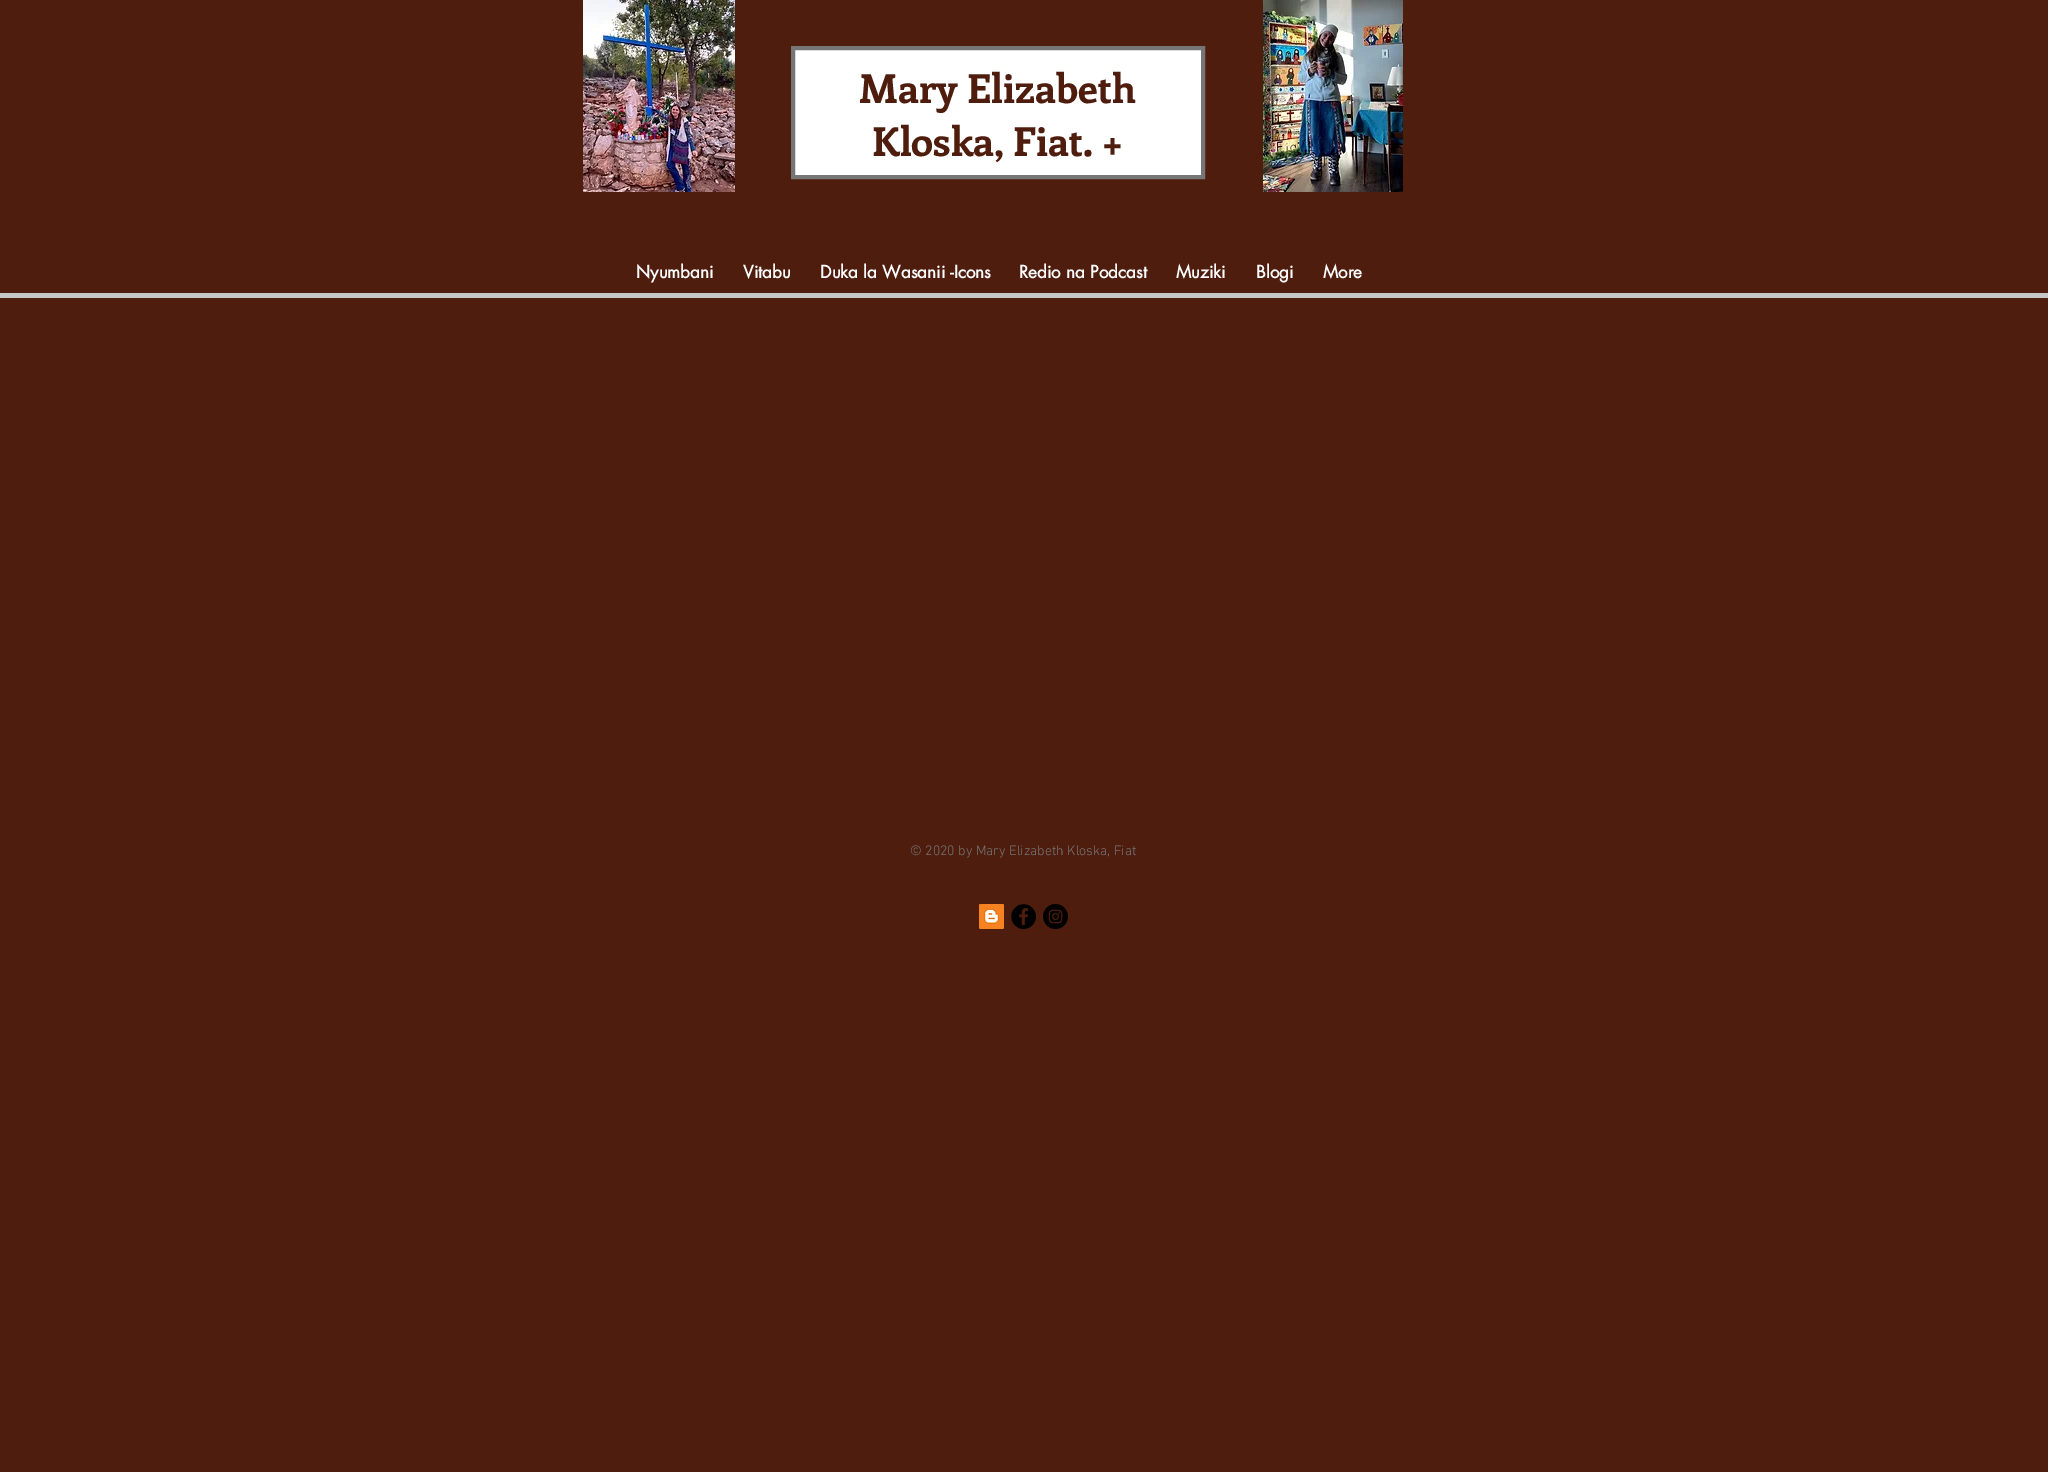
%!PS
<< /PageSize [2048 1472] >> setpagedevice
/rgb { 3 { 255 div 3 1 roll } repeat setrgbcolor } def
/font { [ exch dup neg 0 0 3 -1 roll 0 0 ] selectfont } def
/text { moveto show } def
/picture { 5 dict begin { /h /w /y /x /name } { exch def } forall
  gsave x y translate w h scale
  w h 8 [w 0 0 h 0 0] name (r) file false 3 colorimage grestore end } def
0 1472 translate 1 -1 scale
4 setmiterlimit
79 29 14 rgb
0 0 2048 1472 rectfill
(img_01.rgb) 583 0 152 192 picture
255 255 255 rgb
793 48 moveto 410 0 rlineto 0 129 rlineto -410 0 rlineto closepath gsave fill grestore
118 118 118 rgb
4 setlinewidth
stroke
(img_02.rgb) 1263 0 140 192 picture
199 199 199 rgb
0 293 2048 5 rectfill
(img_03.rgb) 979 904 25 25 picture
(img_04.rgb) 1011 904 25 25 picture
(img_05.rgb) 1043 904 25 25 picture
/Enriqueta-Bold 40 font
79 29 14 rgb
(Mary Elizabeth) 859 103 text
(Kloska, Fiat. +) 872 156 text
/futura-Bold 17 font
255 255 255 rgb
(Nyumbani) 636 278 text
(Vitabu) 743 278 text
(Duka la Wasanii -Icons) 820 278 text
(Redio na Podcast) 1019 278 text
(Muziki) 1176 278 text
(Blogi) 1256 278 text
(More) 1323 278 text
/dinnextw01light-Light 14 font
118 118 118 rgb
(© 2020 by Mary Elizabeth Kloska, Fiat) 910 855 text
showpage
